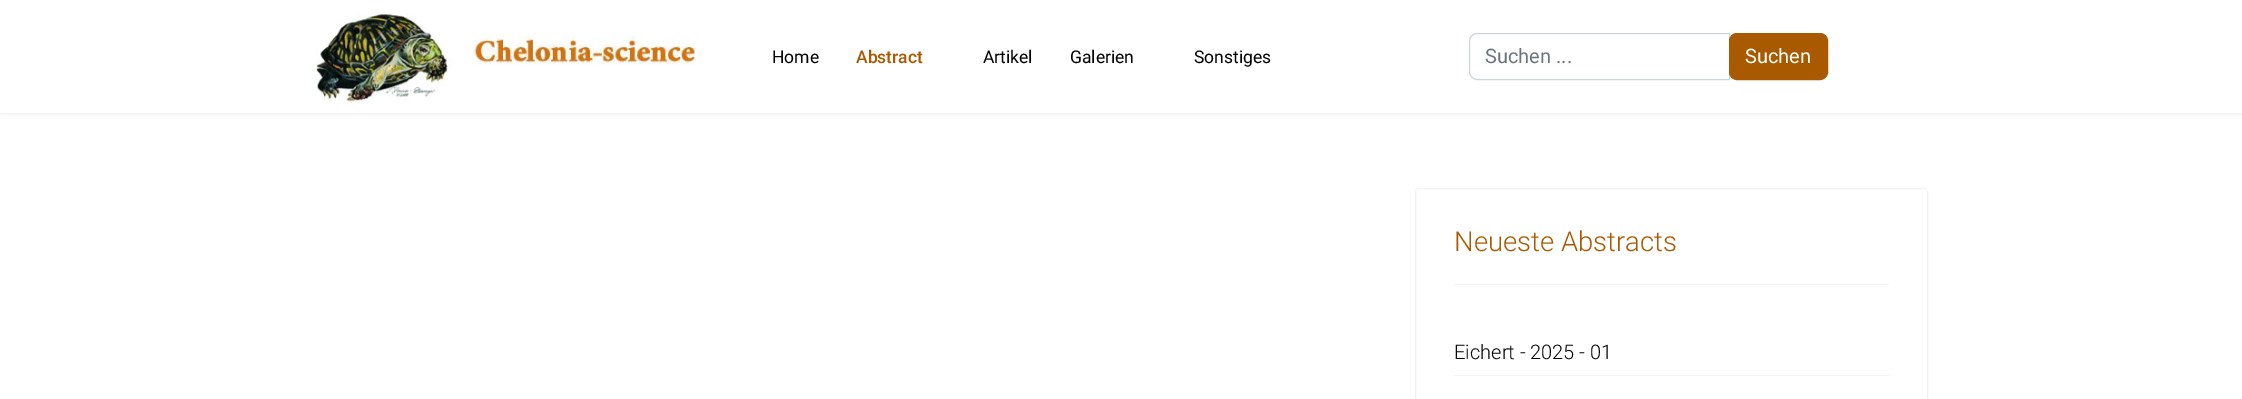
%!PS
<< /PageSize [2242 399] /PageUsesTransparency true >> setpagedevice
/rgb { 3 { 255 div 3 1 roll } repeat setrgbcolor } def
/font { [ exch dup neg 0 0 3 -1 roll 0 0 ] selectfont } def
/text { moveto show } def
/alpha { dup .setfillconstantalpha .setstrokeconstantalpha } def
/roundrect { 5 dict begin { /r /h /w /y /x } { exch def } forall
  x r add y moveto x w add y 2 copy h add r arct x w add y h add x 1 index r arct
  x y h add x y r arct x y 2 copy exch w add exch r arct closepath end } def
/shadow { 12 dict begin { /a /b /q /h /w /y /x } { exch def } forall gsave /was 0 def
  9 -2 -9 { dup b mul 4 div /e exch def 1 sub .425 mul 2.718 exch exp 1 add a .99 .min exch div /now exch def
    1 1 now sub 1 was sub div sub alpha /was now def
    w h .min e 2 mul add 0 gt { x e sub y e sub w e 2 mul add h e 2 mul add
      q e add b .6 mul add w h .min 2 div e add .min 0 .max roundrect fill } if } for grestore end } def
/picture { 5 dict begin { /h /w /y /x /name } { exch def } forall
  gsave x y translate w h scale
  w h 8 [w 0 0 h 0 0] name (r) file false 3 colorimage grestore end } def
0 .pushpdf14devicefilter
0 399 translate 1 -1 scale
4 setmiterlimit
255 255 255 rgb
0 0 2242 399 rectfill
0 0 0 rgb
0 0 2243 113 0 2.5 0.1 shadow
255 255 255 rgb
0 0 2242 113 rectfill
(img_01.rgb) 316 6 380 100 picture
206 212 218 rgb
1477 33.5 moveto 252.5 0 rlineto 0 46 rlineto -252.5 0 rlineto -4 0 -7.5 -3.5 -7.5 -7.5 rcurveto 0 -31 rlineto 0 -4 3.5 -7.5 7.5 -7.5 rcurveto closepath stroke
169 90 0 rgb
1729.5 33.5 98 46 7.5 roundrect gsave fill grestore
stroke
243 243 243 rgb
1415.5 188.5 512 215 3.5 roundrect stroke
1454 284 435 1 rectfill
1454 375 435 1 rectfill
/Roboto-Regular 17.5 font
0 0 0 rgb
(Home) 772 63 text
/Roboto-Medium 17.5 font
169 90 0 rgb
(Abstract) 856 63 text
/Roboto-Regular 17.5 font
0 0 0 rgb
(Artikel) 983 63 text
(Galerien) 1070 63 text
(Sonstiges) 1194 63 text
/Roboto-Regular 20 font
108 117 125 rgb
(Suchen ...) 1485 63 text
255 255 255 rgb
(Suchen) 1745 63 text
/Roboto-Light 27.5 font
169 90 0 rgb
(Neueste Abstracts) 1454 251 text
/Roboto-Light 20 font
0 0 0 rgb
(Eichert - 2025 - 01) 1454 359 text
.poppdf14devicefilter showpage
